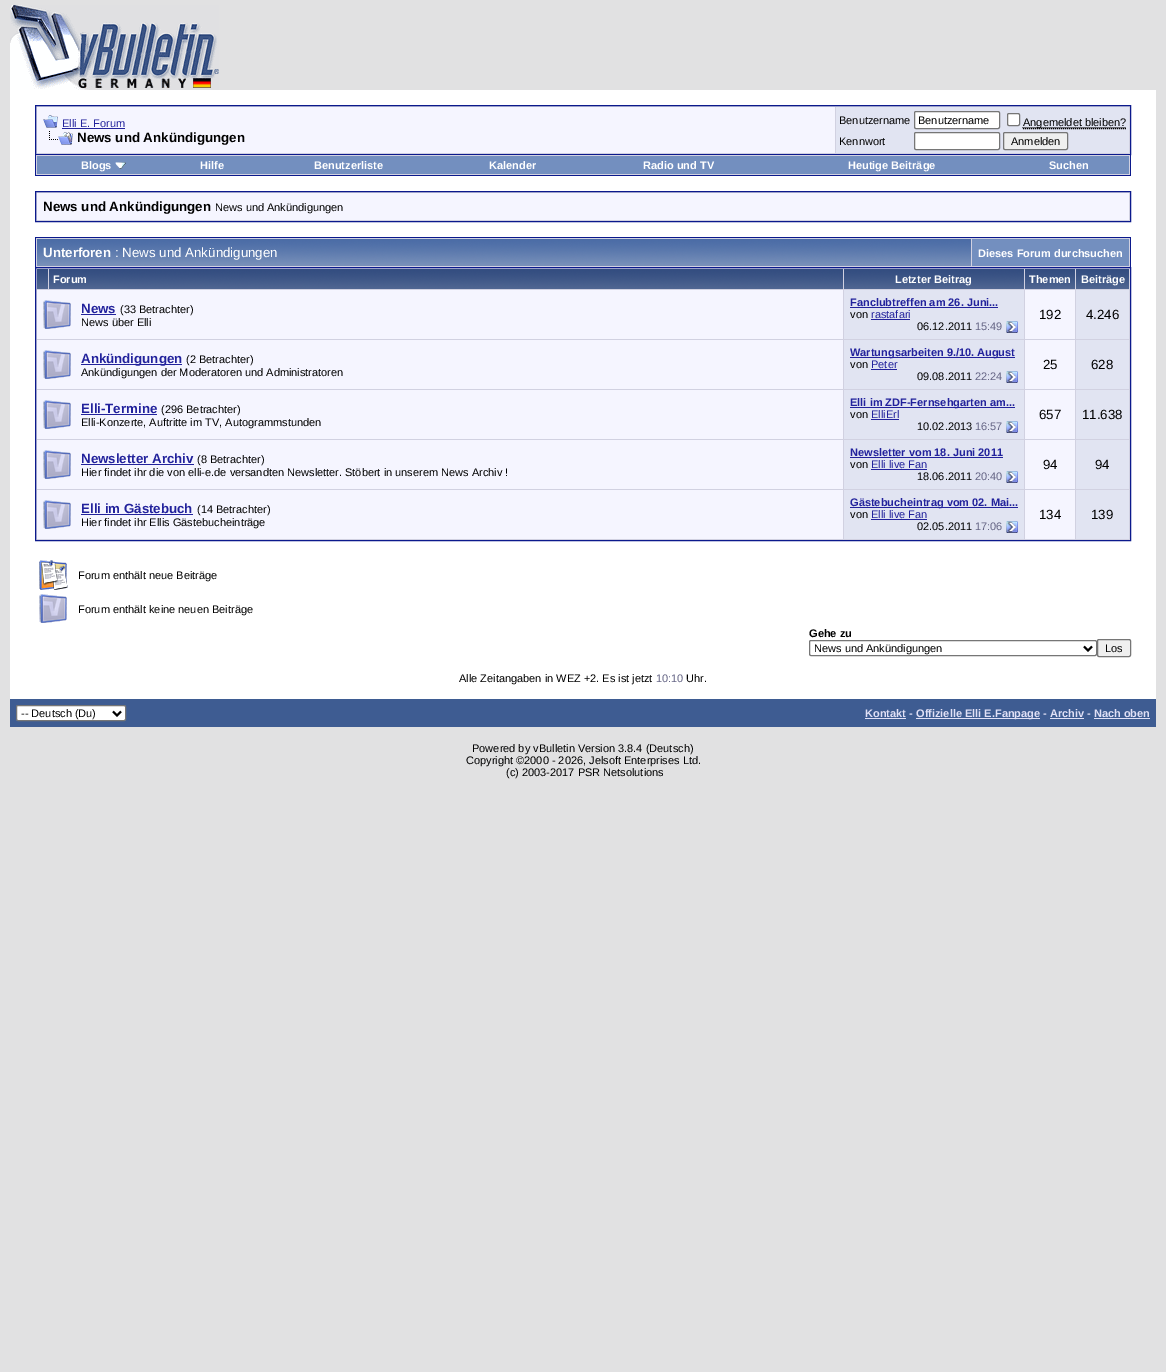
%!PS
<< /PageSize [1166 1372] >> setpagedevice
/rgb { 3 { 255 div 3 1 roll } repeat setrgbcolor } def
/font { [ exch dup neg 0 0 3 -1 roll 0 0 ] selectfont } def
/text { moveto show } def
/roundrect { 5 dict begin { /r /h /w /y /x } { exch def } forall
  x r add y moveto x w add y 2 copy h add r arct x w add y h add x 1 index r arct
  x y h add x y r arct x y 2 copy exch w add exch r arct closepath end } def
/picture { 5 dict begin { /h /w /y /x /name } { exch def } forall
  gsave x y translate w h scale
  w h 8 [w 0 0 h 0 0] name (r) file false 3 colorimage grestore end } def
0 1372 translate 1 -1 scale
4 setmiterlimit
225 225 226 rgb
0 0 1166 1372 rectfill
(img_01.rgb) 10 5 209 85 picture
255 255 255 rgb
10 90 1146 609 rectfill
209 209 225 rgb
35.5 105.5 moveto 1095 0 rlineto 0 49 rlineto -1095 0 rlineto closepath gsave fill grestore
11 25 140 rgb
stroke
245 245 255 rgb
37 107 798 46 rectfill
(img_02.rgb) 43 115 15 13 picture
34 34 156 rgb
62 128 63 1 rectfill
(img_03.rgb) 49 131 24 14 picture
225 228 242 rgb
836 107 293 46 rectfill
255 255 255 rgb
914.5 111.5 85 17 1.5 roundrect gsave fill grestore
118 118 118 rgb
stroke
255 255 255 rgb
1007.5 113.5 12 12 1.5 roundrect gsave fill grestore
118 118 118 rgb
stroke
0 0 0 rgb
[1 1] 0 setdash
1023 128.5 moveto 103 0 rlineto stroke
1022.5 127.5 moveto 103.5 0 rlineto stroke
255 255 255 rgb
914.5 132.5 85 17 1.5 roundrect gsave fill grestore
118 118 118 rgb
[] 0 setdash
stroke
239 239 239 rgb
1003.5 132.5 64 17 1.5 roundrect gsave fill grestore
118 118 118 rgb
stroke
209 209 225 rgb
36 155 1094 20 rectfill
11 25 140 rgb
1130 155 1 21 rectfill
35 175 1096 1 rectfill
35 155 1 21 rectfill
115 143 191 rgb
37 156 1092 18 rectfill
(img_04.rgb) 115 162 11 7 picture
209 209 225 rgb
35.5 191.5 moveto 1095 0 rlineto 0 30 rlineto -1095 0 rlineto closepath gsave fill grestore
11 25 140 rgb
stroke
245 245 255 rgb
37 193 1092 27 rectfill
209 209 225 rgb
36 238 1094 29 rectfill
11 25 140 rgb
35 237 1096 1 rectfill
1130 237 1 30 rectfill
35 237 1 30 rectfill
(img_05.rgb) 37 239 934 27 picture
115 143 191 rgb
972 239 157 27 rectfill
209 209 225 rgb
35.5 267.5 moveto 1095 0 rlineto 0 273 rlineto -1095 0 rlineto closepath gsave fill grestore
11 25 140 rgb
stroke
(img_06.rgb) 37 269 11 20 picture
(img_07.rgb) 49 269 794 20 picture
(img_08.rgb) 844 269 180 20 picture
(img_09.rgb) 1025 269 50 20 picture
(img_10.rgb) 1076 269 53 20 picture
245 245 255 rgb
37 290 806 49 rectfill
(img_11.rgb) 43 300 28 29 picture
34 34 156 rgb
81 314 35 1 rectfill
225 228 242 rgb
844 290 180 49 rectfill
34 34 156 rgb
850 307 148 1 rectfill
871 319 39 1 rectfill
(img_12.rgb) 1006 321 12 12 picture
245 245 255 rgb
1025 290 50 49 rectfill
225 228 242 rgb
1076 290 53 49 rectfill
245 245 255 rgb
37 340 806 49 rectfill
(img_11.rgb) 43 350 28 29 picture
34 34 156 rgb
81 364 101 1 rectfill
225 228 242 rgb
844 340 180 49 rectfill
34 34 156 rgb
850 357 165 1 rectfill
871 369 26 1 rectfill
(img_12.rgb) 1006 371 12 12 picture
245 245 255 rgb
1025 340 50 49 rectfill
225 228 242 rgb
1076 340 53 49 rectfill
245 245 255 rgb
37 390 806 49 rectfill
(img_11.rgb) 43 400 28 29 picture
34 34 156 rgb
81 414 76 1 rectfill
225 228 242 rgb
844 390 180 49 rectfill
34 34 156 rgb
850 407 165 1 rectfill
871 419 28 1 rectfill
(img_12.rgb) 1006 421 12 12 picture
245 245 255 rgb
1025 390 50 49 rectfill
225 228 242 rgb
1076 390 53 49 rectfill
245 245 255 rgb
37 440 806 49 rectfill
(img_11.rgb) 43 450 28 29 picture
34 34 156 rgb
81 464 113 1 rectfill
225 228 242 rgb
844 440 180 49 rectfill
34 34 156 rgb
850 457 153 1 rectfill
871 469 56 1 rectfill
(img_12.rgb) 1006 471 12 12 picture
245 245 255 rgb
1025 440 50 49 rectfill
225 228 242 rgb
1076 440 53 49 rectfill
245 245 255 rgb
37 490 806 49 rectfill
(img_11.rgb) 43 500 28 29 picture
34 34 156 rgb
81 514 112 1 rectfill
225 228 242 rgb
844 490 180 49 rectfill
34 34 156 rgb
850 507 168 1 rectfill
871 519 56 1 rectfill
(img_12.rgb) 1006 521 12 12 picture
245 245 255 rgb
1025 490 50 49 rectfill
225 228 242 rgb
1076 490 53 49 rectfill
(img_13.rgb) 39 560 29 30 picture
(img_14.rgb) 39 594 28 29 picture
118 118 118 rgb
809.5 640.5 287 15 1.5 roundrect stroke
0 0 0 rgb
2 setlinewidth
1084 646.5 moveto 4 4 rlineto 4 -4 rlineto stroke
239 239 239 rgb
1097.5 639.5 33 17 1.5 roundrect gsave fill grestore
118 118 118 rgb
1 setlinewidth
stroke
62 92 146 rgb
10 699 1146 28 rectfill
255 255 255 rgb
16.5 705.5 109 15 1.5 roundrect gsave fill grestore
118 118 118 rgb
stroke
0 0 0 rgb
2 setlinewidth
113 711.5 moveto 4 4 rlineto 4 -4 rlineto stroke
224 224 246 rgb
865 718 41 1 rectfill
916 718 124 1 rectfill
1050 718 34 1 rectfill
1094 718 56 1 rectfill
/LiberationSans-Regular 11 font
34 34 156 rgb
(Elli E. Forum) 62 127 text
/LiberationSans-Bold 13.3 font
0 0 0 rgb
(News und Ankündigungen) 77 142 text
/LiberationSans-Regular 11 font
(Benutzername) 839 124 text
(Benutzername) 918 124 text
(Angemeldet bleiben?) 1023 126 text
(Kennwort) 839 145 text
(Anmelden) 1011 145 text
/LiberationSans-Bold 11 font
255 255 255 rgb
(Blogs) 81 169 text
(Hilfe) 200 169 text
(Benutzerliste) 314 169 text
(Kalender) 489 169 text
(Radio und TV) 643 169 text
(Heutige Beiträge) 848 169 text
(Suchen) 1049 169 text
/LiberationSans-Bold 13.3 font
0 0 0 rgb
(News und Ankündigungen) 43 211 text
/LiberationSans-Regular 11 font
(News und Ankündigungen) 215 211 text
/LiberationSans-Bold 13.3 font
255 255 255 rgb
(Unterforen) 43 257 text
/LiberationSans-Regular 13.3 font
(: News und Ankündigungen) 115 257 text
/LiberationSans-Bold 11 font
(Dieses Forum durchsuchen) 978 257 text
(Forum) 53 283 text
(Letzter Beitrag) 895 283 text
(Themen) 1029 283 text
(Beiträge) 1081 283 text
/LiberationSans-Bold 13.3 font
34 34 156 rgb
(News) 81 313 text
/LiberationSans-Regular 11 font
0 0 0 rgb
(\(33 Betrachter\)) 120 313 text
(News über Elli) 81 326 text
/LiberationSans-Bold 11 font
34 34 156 rgb
(Fanclubtreffen am 26. Juni...) 850 306 text
/LiberationSans-Regular 11 font
0 0 0 rgb
(von) 850 318 text
34 34 156 rgb
(rastafari) 871 318 text
0 0 0 rgb
(06.12.2011) 917 330 text
102 102 134 rgb
(15:49) 975 330 text
/LiberationSans-Regular 13.3 font
0 0 0 rgb
(192) 1039 319 text
(4.246) 1086 319 text
/LiberationSans-Bold 13.3 font
34 34 156 rgb
(Ankündigungen) 81 363 text
/LiberationSans-Regular 11 font
0 0 0 rgb
(\(2 Betrachter\)) 186 363 text
(Ankündigungen der Moderatoren und Administratoren) 81 376 text
/LiberationSans-Bold 11 font
34 34 156 rgb
(Wartungsarbeiten 9./10. August) 850 356 text
/LiberationSans-Regular 11 font
0 0 0 rgb
(von) 850 368 text
34 34 156 rgb
(Peter) 871 368 text
0 0 0 rgb
(09.08.2011) 917 380 text
102 102 134 rgb
(22:24) 975 380 text
/LiberationSans-Regular 13.3 font
0 0 0 rgb
(25) 1043 369 text
(628) 1091 369 text
/LiberationSans-Bold 13.3 font
34 34 156 rgb
(Elli-Termine) 81 413 text
/LiberationSans-Regular 11 font
0 0 0 rgb
(\(296 Betrachter\)) 161 413 text
(Elli-Konzerte, Auftritte im TV, Autogrammstunden) 81 426 text
/LiberationSans-Bold 11 font
34 34 156 rgb
(Elli im ZDF-Fernsehgarten am...) 850 406 text
/LiberationSans-Regular 11 font
0 0 0 rgb
(von) 850 418 text
34 34 156 rgb
(ElliErl) 871 418 text
0 0 0 rgb
(10.02.2013) 917 430 text
102 102 134 rgb
(16:57) 975 430 text
/LiberationSans-Regular 13.3 font
0 0 0 rgb
(657) 1039 419 text
(11.638) 1082 419 text
/LiberationSans-Bold 13.3 font
34 34 156 rgb
(Newsletter Archiv) 81 463 text
/LiberationSans-Regular 11 font
0 0 0 rgb
(\(8 Betrachter\)) 197 463 text
(Hier findet ihr die von elli-e.de versandten Newsletter. Stöbert in unserem News Archiv !) 81 476 text
/LiberationSans-Bold 11 font
34 34 156 rgb
(Newsletter vom 18. Juni 2011) 850 456 text
/LiberationSans-Regular 11 font
0 0 0 rgb
(von) 850 468 text
34 34 156 rgb
(Elli live Fan) 871 468 text
0 0 0 rgb
(18.06.2011) 917 480 text
102 102 134 rgb
(20:40) 975 480 text
/LiberationSans-Regular 13.3 font
0 0 0 rgb
(94) 1043 469 text
(94) 1095 469 text
/LiberationSans-Bold 13.3 font
34 34 156 rgb
(Elli im Gästebuch) 81 513 text
/LiberationSans-Regular 11 font
0 0 0 rgb
(\(14 Betrachter\)) 197 513 text
(Hier findet ihr Ellis Gästebucheinträge) 81 526 text
/LiberationSans-Bold 11 font
34 34 156 rgb
(Gästebucheintrag vom 02. Mai...) 850 506 text
/LiberationSans-Regular 11 font
0 0 0 rgb
(von) 850 518 text
34 34 156 rgb
(Elli live Fan) 871 518 text
0 0 0 rgb
(02.05.2011) 917 530 text
102 102 134 rgb
(17:06) 975 530 text
/LiberationSans-Regular 13.3 font
0 0 0 rgb
(134) 1039 519 text
(139) 1091 519 text
/LiberationSans-Regular 11 font
(Forum enthält neue Beiträge) 78 579 text
(Forum enthält keine neuen Beiträge) 78 613 text
/LiberationSans-Bold 11 font
(Gehe zu) 809 637 text
/LiberationSans-Regular 11 font
(News und Ankündigungen) 814 652 text
(Los) 1105 652 text
(Alle Zeitangaben in WEZ +2. Es ist jetzt) 459 682 text
102 102 134 rgb
(10:10) 656 682 text
0 0 0 rgb
(Uhr.) 686 682 text
(-- Deutsch \(Du\)) 21 717 text
/LiberationSans-Bold 11 font
224 224 246 rgb
(Kontakt -) 865 717 text
(Offizielle Elli E.Fanpage - Archiv - Nach oben) 916 717 text
/LiberationSans-Regular 11 font
0 0 0 rgb
(Powered by vBulletin Version 3.8.4 \(Deutsch\)) 472 752 text
(Copyright ©2000 - 2026, Jelsoft Enterprises Ltd.) 466 764 text
(\(c\) 2003-2017 PSR Netsolutions) 506 776 text
showpage
